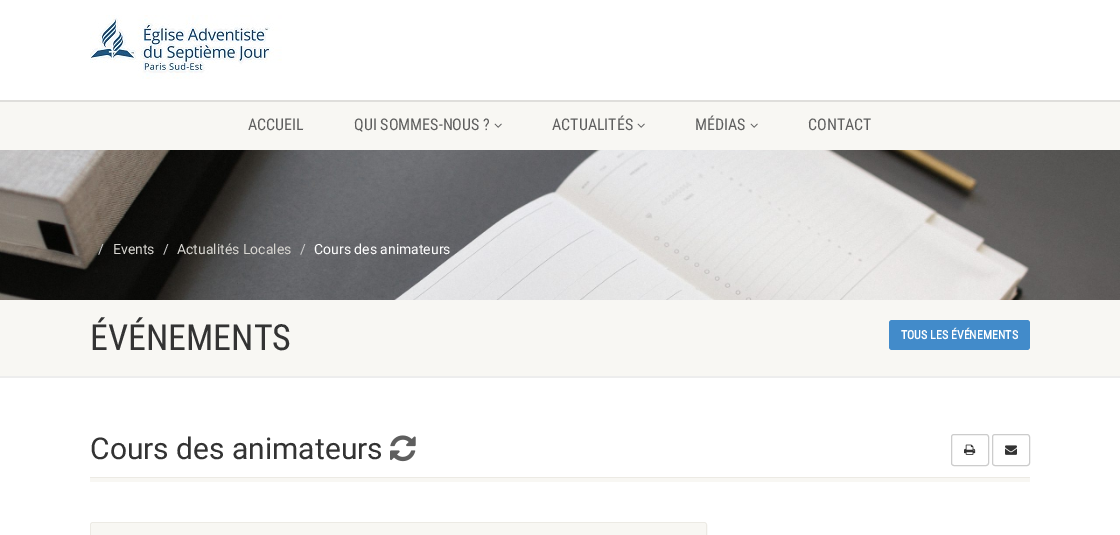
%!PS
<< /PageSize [1120 535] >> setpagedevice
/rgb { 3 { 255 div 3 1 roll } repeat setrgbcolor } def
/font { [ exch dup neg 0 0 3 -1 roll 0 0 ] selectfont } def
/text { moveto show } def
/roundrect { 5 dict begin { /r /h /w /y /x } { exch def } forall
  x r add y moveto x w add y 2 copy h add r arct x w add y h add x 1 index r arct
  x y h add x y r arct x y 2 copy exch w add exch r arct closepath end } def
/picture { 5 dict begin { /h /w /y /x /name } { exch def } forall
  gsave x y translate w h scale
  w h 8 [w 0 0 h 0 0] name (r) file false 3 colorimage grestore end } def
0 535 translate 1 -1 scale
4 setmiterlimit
255 255 255 rgb
0 0 1120 535 rectfill
223 222 219 rgb
0 100 1120 2 rectfill
(img_01.rgb) 90 15 192 64 picture
248 247 243 rgb
0 102 1120 48 rectfill
(img_02.rgb) 494 123 8 5 picture
(img_02.rgb) 637 123 8 5 picture
(img_02.rgb) 750 123 8 5 picture
(img_03.rgb) 0 150 1120 150 picture
237 237 237 rgb
0 376 1120 2 rectfill
248 247 243 rgb
0 300 1120 76 rectfill
66 139 202 rgb
889 320 141 30 3 roundrect fill
236 234 228 rgb
90 477 940 1 rectfill
(img_04.rgb) 390 435 26 27 picture
204 204 204 rgb
951.5 434.5 37 31 2.5 roundrect stroke
(img_05.rgb) 964 444 12 11 picture
992.5 434.5 37 31 2.5 roundrect stroke
(img_06.rgb) 1005 445 12 10 picture
248 247 243 rgb
90 478 940 4 rectfill
236 234 228 rgb
90.5 522.5 616 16 2.5 roundrect stroke
248 247 243 rgb
94 523 moveto 609 0 rlineto 1.5 0 3 1.5 3 3 rcurveto 0 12 rlineto -615 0 rlineto 0 -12 rlineto 0 -1.5 1.5 -3 3 -3 rcurveto closepath fill
/RobotoCondensed-Regular 16 font
94 94 94 rgb
(ACCUEIL) 248 130 text
(QUI SOMMES-NOUS ?) 354 130 text
(ACTUALITÉS) 552 130 text
(MÉDIAS) 695 130 text
(CONTACT) 808 130 text
/Roboto-Regular 14 font
204 204 204 rgb
(/) 98 254 text
216 214 209 rgb
(Events) 113 254 text
204 204 204 rgb
(/) 163 254 text
216 214 209 rgb
(Actualités Locales) 177 254 text
204 204 204 rgb
(/) 300 254 text
255 255 255 rgb
(Cours des animateurs) 314 254 text
/RobotoCondensed-Regular 36 font
51 51 51 rgb
(ÉVÉNEMENTS) 90 350 text
/RobotoCondensed-Bold 12 font
255 255 255 rgb
(TOUS LES ÉVÉNEMENTS) 901 339 text
/Roboto-Regular 30 font
51 51 51 rgb
(Cours des animateurs) 90 459 text
showpage
